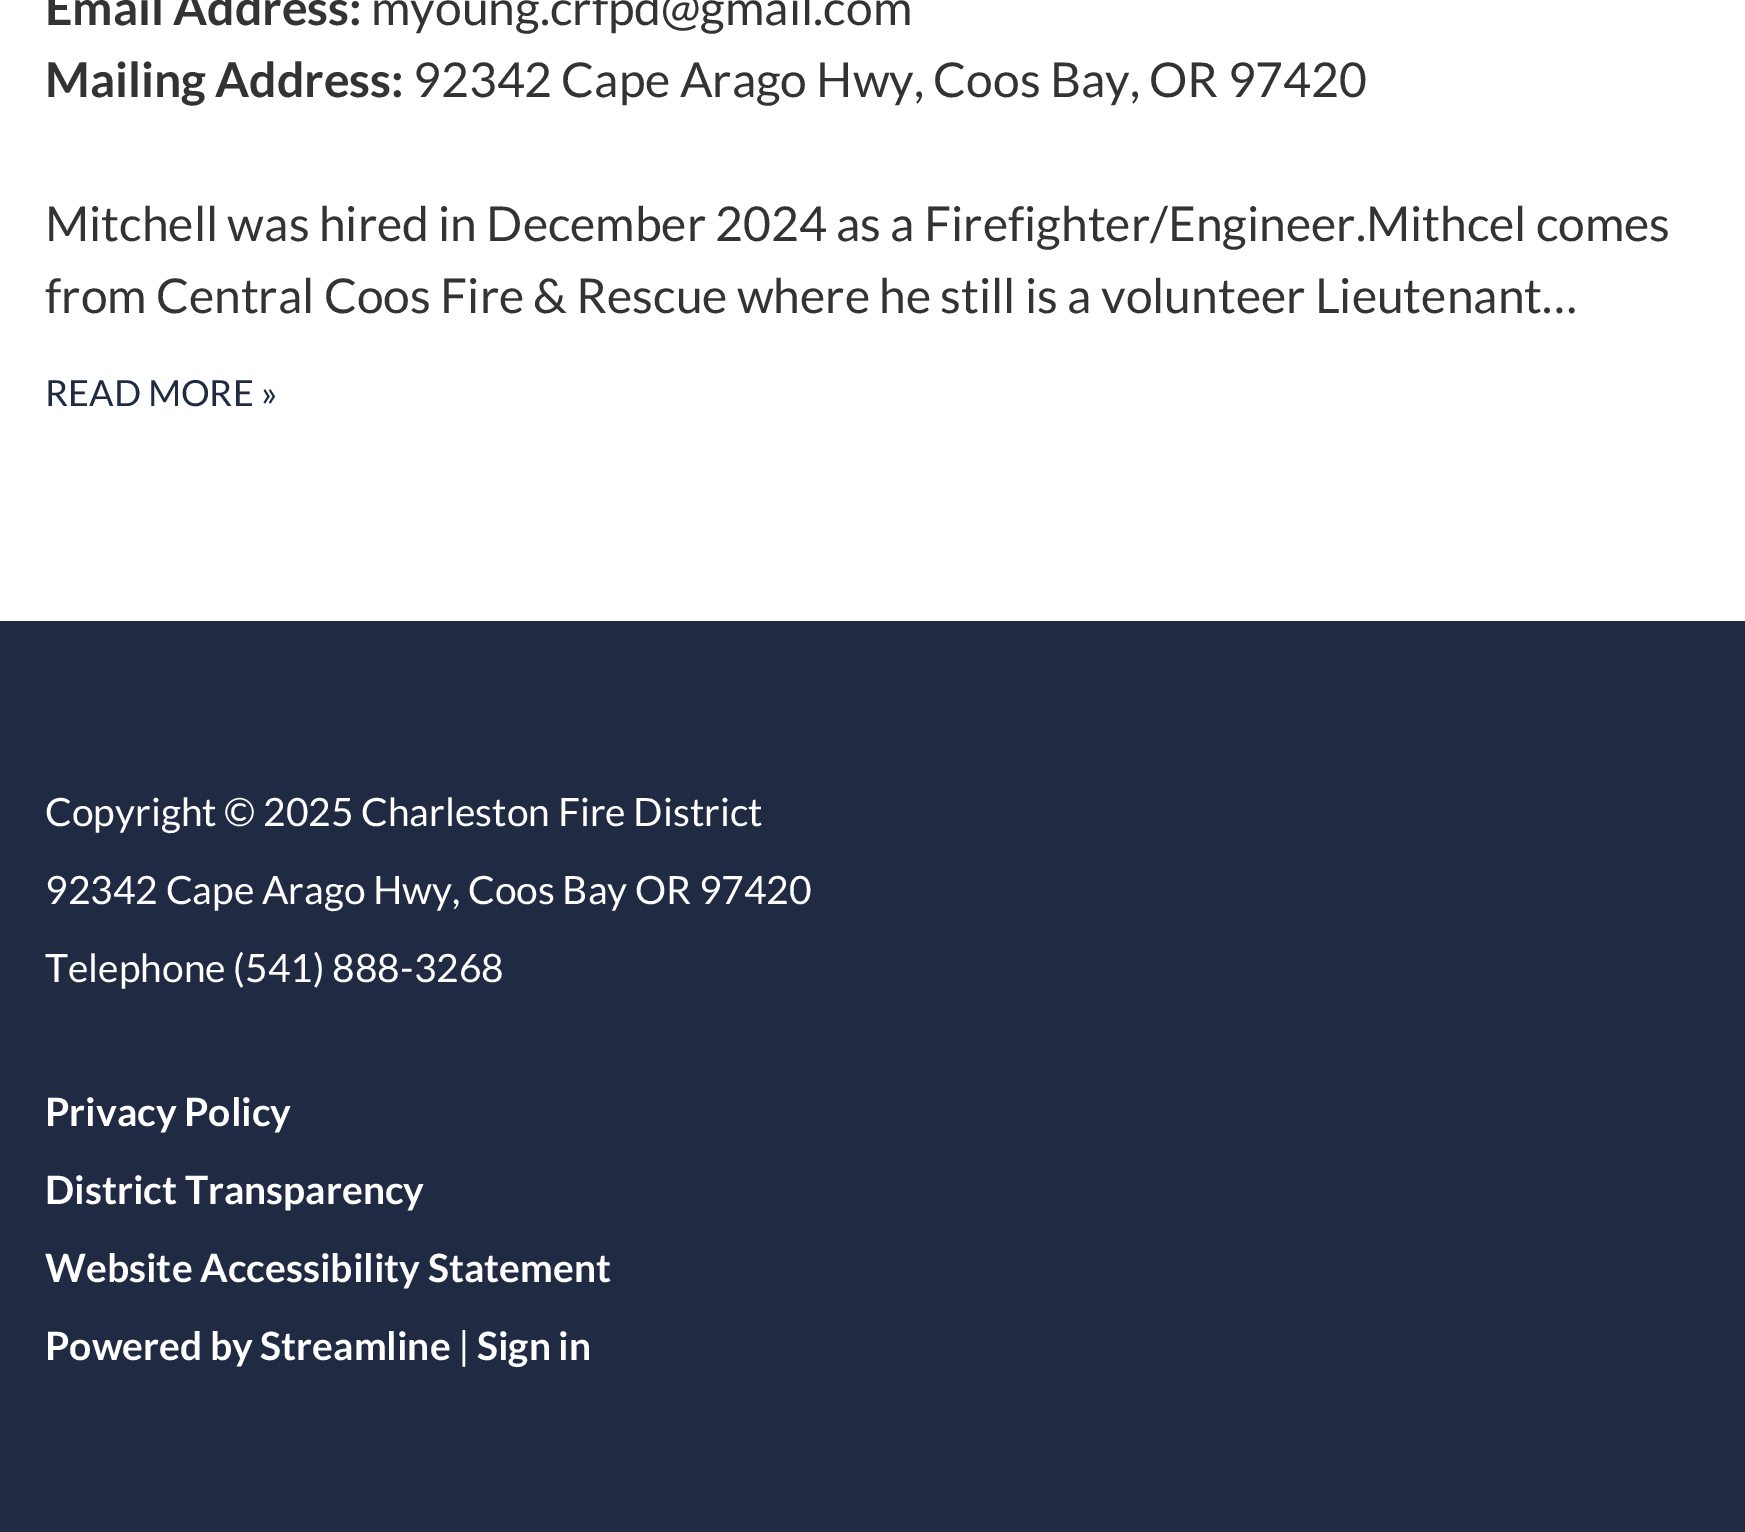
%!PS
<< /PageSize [1745 1532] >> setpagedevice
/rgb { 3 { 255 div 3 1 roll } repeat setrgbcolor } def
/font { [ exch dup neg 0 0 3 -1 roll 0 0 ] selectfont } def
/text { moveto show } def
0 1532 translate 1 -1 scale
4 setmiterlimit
32 42 66 rgb
0 0 1745 1532 rectfill
255 255 255 rgb
0 0 1745 621 rectfill
/Lato-Bold 48 font
51 51 51 rgb
(Email Address:) 45 25 text
/Lato-Regular 48 font
(myoung.crfpd@gmail.com) 371 25 text
/Lato-Bold 48 font
(Mailing Address:) 45 97 text
/Lato-Regular 48 font
(92342 Cape Arago Hwy, Coos Bay, OR 97420) 413 97 text
(Mitchell was hired in December 2024 as a Firefighter/Engineer.Mithcel comes) 45 241 text
(from Central Coos Fire & Rescue where he still is a volunteer Lieutenant…) 45 313 text
/Lato-Regular 36 font
32 42 66 rgb
(READ MORE ») 45 406 text
/Lato-Regular 39 font
255 255 255 rgb
(Copyright © 2025 Charleston Fire District) 45 826 text
(92342 Cape Arago Hwy, Coos Bay OR 97420) 45 904 text
(Telephone \(541\) 888-3268) 45 982 text
/Lato-Bold 39 font
(Privacy Policy) 45 1126 text
(District Transparency) 45 1204 text
(Website Accessibility Statement) 45 1282 text
(Powered by Streamline) 45 1360 text
/Lato-Regular 39 font
(|) 458 1360 text
/Lato-Bold 39 font
(Sign in) 477 1360 text
showpage
